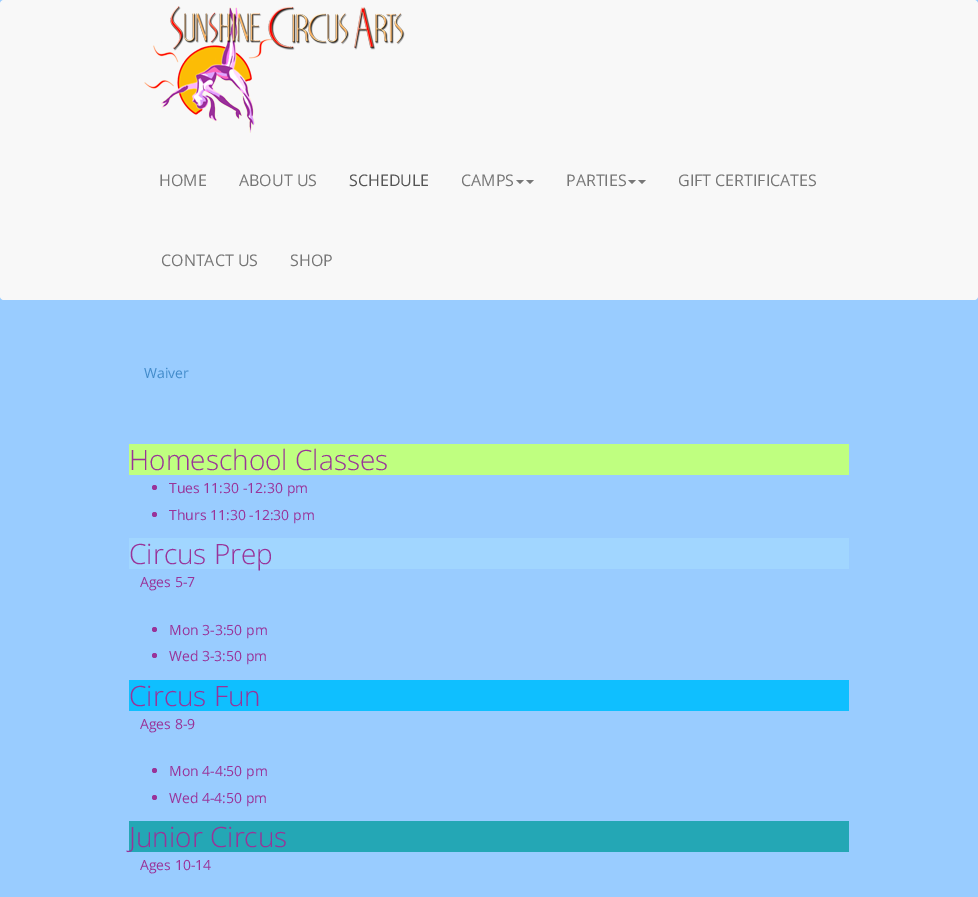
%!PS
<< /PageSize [978 897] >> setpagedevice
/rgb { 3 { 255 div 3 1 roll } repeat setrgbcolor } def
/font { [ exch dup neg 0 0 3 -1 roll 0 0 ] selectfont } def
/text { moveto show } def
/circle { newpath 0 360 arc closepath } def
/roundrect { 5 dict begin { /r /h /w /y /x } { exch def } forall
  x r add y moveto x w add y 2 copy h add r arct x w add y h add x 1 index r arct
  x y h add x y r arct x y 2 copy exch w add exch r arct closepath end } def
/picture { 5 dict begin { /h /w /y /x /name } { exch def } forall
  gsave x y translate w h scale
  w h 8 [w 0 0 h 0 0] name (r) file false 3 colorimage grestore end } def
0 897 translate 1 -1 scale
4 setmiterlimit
153 204 255 rgb
0 0 978 897 rectfill
248 248 248 rgb
0 0 978 300 4 roundrect fill
(img_01.rgb) 144 6 261 127 picture
119 119 119 rgb
516 180 moveto 8 0 rlineto -4 4 rlineto closepath 526 180 moveto 8 0 rlineto -4 4 rlineto closepath fill
628 180 moveto 8 0 rlineto -4 4 rlineto closepath 638 180 moveto 8 0 rlineto -4 4 rlineto closepath fill
191 255 128 rgb
129 444 720 31 rectfill
153 51 153 rgb
154.5 487.5 2.5 circle fill
154.5 514.5 2.5 circle fill
161 214 255 rgb
129 538 720 31 rectfill
153 51 153 rgb
154.5 629.5 2.5 circle fill
154.5 655.5 2.5 circle fill
15 191 255 rgb
129 680 720 31 rectfill
153 51 153 rgb
154.5 770.5 2.5 circle fill
154.5 797.5 2.5 circle fill
36 167 181 rgb
129 821 720 31 rectfill
/OpenSans-Regular 16 font
119 119 119 rgb
(HOME) 159 186 text
(ABOUT US) 239 186 text
85 85 85 rgb
(SCHEDULE) 349 186 text
119 119 119 rgb
(CAMPS) 461 186 text
(PARTIES) 566 186 text
(GIFT CERTIFICATES) 678 186 text
(CONTACT US) 161 266 text
(SHOP) 290 266 text
/OpenSans-Regular 14 font
66 139 202 rgb
(Waiver) 144 378 text
/OpenSans-Light 28 font
153 51 153 rgb
(Homeschool Classes) 129 470 text
/OpenSans-Regular 14 font
(Tues 11:30 -12:30 pm) 169 493 text
(Thurs 11:30 -12:30 pm) 169 520 text
/OpenSans-Light 28 font
(Circus Prep) 129 564 text
/OpenSans-Regular 14 font
(Ages 5-7) 140 587 text
(Mon 3-3:50 pm) 169 635 text
(Wed 3-3:50 pm) 169 661 text
/OpenSans-Light 28 font
(Circus Fun) 129 706 text
/OpenSans-Regular 14 font
(Ages 8-9) 140 729 text
(Mon 4-4:50 pm) 169 776 text
(Wed 4-4:50 pm) 169 803 text
/OpenSans-Light 28 font
(Junior Circus) 129 847 text
/OpenSans-Regular 14 font
(Ages 10-14) 140 870 text
showpage
